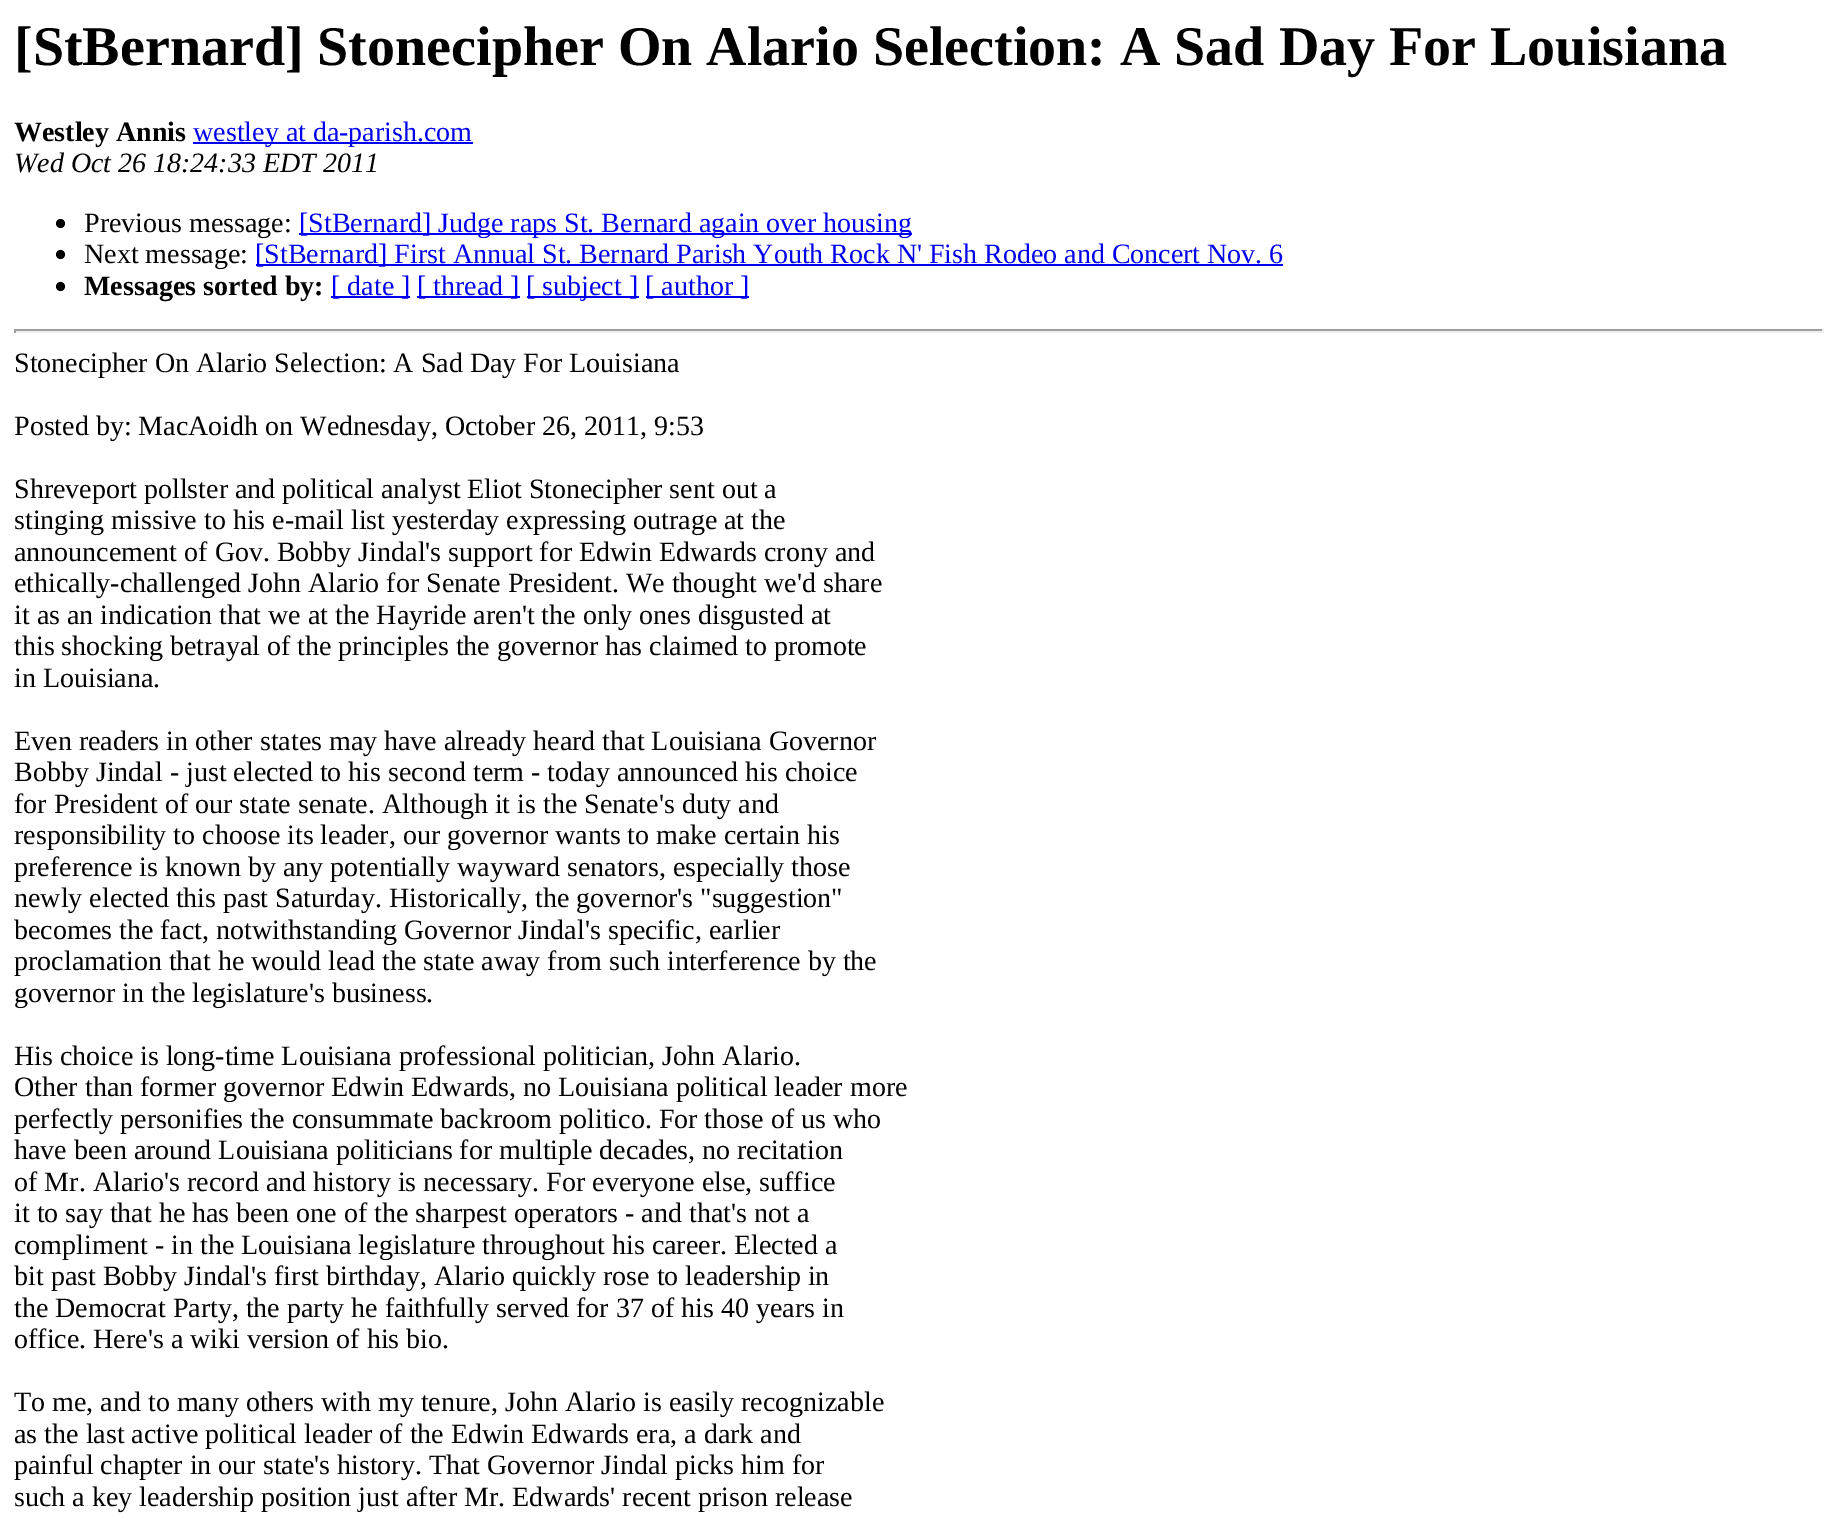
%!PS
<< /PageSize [1837 1532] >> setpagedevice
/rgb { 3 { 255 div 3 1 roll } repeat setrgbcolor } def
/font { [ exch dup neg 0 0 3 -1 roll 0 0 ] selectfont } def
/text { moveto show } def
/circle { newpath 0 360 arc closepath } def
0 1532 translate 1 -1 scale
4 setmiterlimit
255 255 255 rgb
0 0 1837 1532 rectfill
0 0 238 rgb
193 142 280 2 rectfill
0 0 0 rgb
60.5 223.5 4.5 circle fill
0 0 238 rgb
299 233 613 2 rectfill
0 0 0 rgb
60.5 254.5 4.5 circle fill
0 0 238 rgb
256 264 1027 2 rectfill
0 0 0 rgb
60.5 286.5 4.5 circle fill
0 0 238 rgb
331 296 79 2 rectfill
417 296 103 2 rectfill
527 296 112 2 rectfill
646 296 103 2 rectfill
159 159 159 rgb
14 329 1810 2 rectfill
238 238 238 rgb
1822 329 2 4 rectfill
14 331 1810 2 rectfill
159 159 159 rgb
14 329 2 4 rectfill
/LiberationSerif-Bold 56 font
0 0 0 rgb
([StBernard] Stonecipher On Alario Selection: A Sad Day For Louisiana) 14 65 text
/LiberationSerif-Bold 28 font
(Westley Annis) 14 141 text
/LiberationSerif-Regular 28 font
0 0 238 rgb
(westley at da-parish.com) 193 141 text
/LiberationSerif-Italic 28 font
0 0 0 rgb
(Wed Oct 26 18:24:33 EDT 2011) 14 172 text
/LiberationSerif-Regular 28 font
(Previous message:) 84 232 text
0 0 238 rgb
([StBernard] Judge raps St. Bernard again over housing) 299 232 text
0 0 0 rgb
(Next message:) 84 263 text
0 0 238 rgb
([StBernard] First Annual St. Bernard Parish Youth Rock N' Fish Rodeo and Concert Nov. 6) 255 263 text
/LiberationSerif-Bold 28 font
0 0 0 rgb
(Messages sorted by:) 84 295 text
/LiberationSerif-Regular 28 font
0 0 238 rgb
([ date ]) 331 295 text
([ thread ]) 417 295 text
([ subject ]) 526 295 text
([ author ]) 645 295 text
0 0 0 rgb
(Stonecipher On Alario Selection: A Sad Day For Louisiana) 14 372 text
(Posted by: MacAoidh on Wednesday, October 26, 2011, 9:53) 14 435 text
(Shreveport pollster and political analyst Eliot Stonecipher sent out a) 14 498 text
(stinging missive to his e-mail list yesterday expressing outrage at the) 14 529 text
(announcement of Gov. Bobby Jindal's support for Edwin Edwards crony and) 14 561 text
(ethically-challenged John Alario for Senate President. We thought we'd share) 14 592 text
(it as an indication that we at the Hayride aren't the only ones disgusted at) 14 624 text
(this shocking betrayal of the principles the governor has claimed to promote) 14 655 text
(in Louisiana.) 14 687 text
(Even readers in other states may have already heard that Louisiana Governor) 14 750 text
(Bobby Jindal - just elected to his second term - today announced his choice) 14 781 text
(for President of our state senate. Although it is the Senate's duty and) 14 813 text
(responsibility to choose its leader, our governor wants to make certain his) 14 844 text
(preference is known by any potentially wayward senators, especially those) 14 876 text
(newly elected this past Saturday. Historically, the governor's "suggestion") 14 907 text
(becomes the fact, notwithstanding Governor Jindal's specific, earlier) 14 939 text
(proclamation that he would lead the state away from such interference by the) 14 970 text
(governor in the legislature's business.) 14 1002 text
(His choice is long-time Louisiana professional politician, John Alario.) 14 1065 text
(Other than former governor Edwin Edwards, no Louisiana political leader more) 14 1096 text
(perfectly personifies the consummate backroom politico. For those of us who) 14 1128 text
(have been around Louisiana politicians for multiple decades, no recitation) 14 1159 text
(of Mr. Alario's record and history is necessary. For everyone else, suffice) 14 1191 text
(it to say that he has been one of the sharpest operators - and that's not a) 14 1222 text
(compliment - in the Louisiana legislature throughout his career. Elected a) 14 1254 text
(bit past Bobby Jindal's first birthday, Alario quickly rose to leadership in) 14 1285 text
(the Democrat Party, the party he faithfully served for 37 of his 40 years in) 14 1317 text
(office. Here's a wiki version of his bio.) 14 1348 text
(To me, and to many others with my tenure, John Alario is easily recognizable) 14 1411 text
(as the last active political leader of the Edwin Edwards era, a dark and) 14 1443 text
(painful chapter in our state's history. That Governor Jindal picks him for) 14 1474 text
(such a key leadership position just after Mr. Edwards' recent prison release) 14 1506 text
showpage
